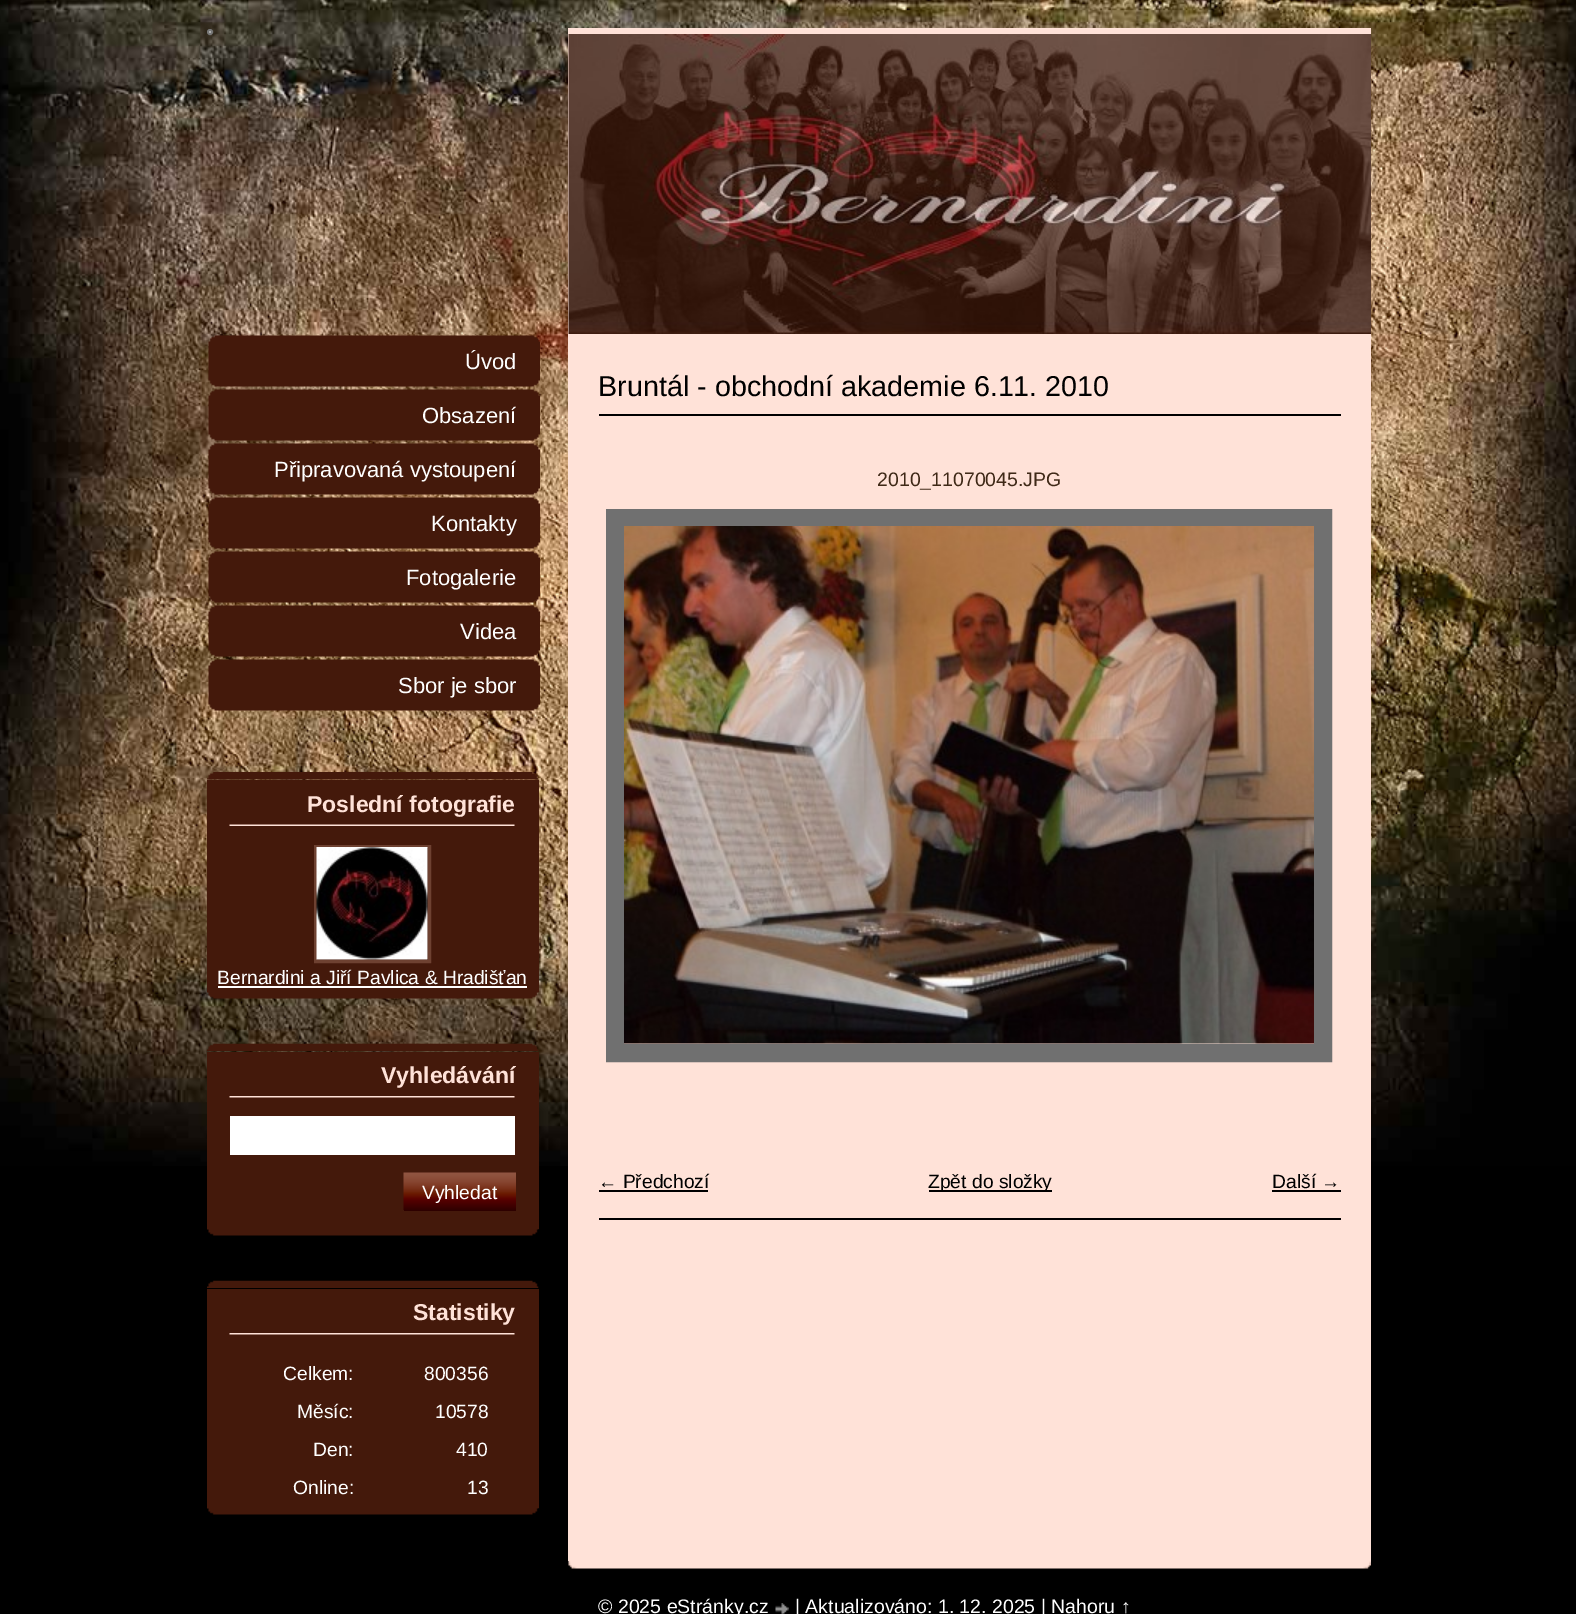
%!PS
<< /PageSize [1576 1614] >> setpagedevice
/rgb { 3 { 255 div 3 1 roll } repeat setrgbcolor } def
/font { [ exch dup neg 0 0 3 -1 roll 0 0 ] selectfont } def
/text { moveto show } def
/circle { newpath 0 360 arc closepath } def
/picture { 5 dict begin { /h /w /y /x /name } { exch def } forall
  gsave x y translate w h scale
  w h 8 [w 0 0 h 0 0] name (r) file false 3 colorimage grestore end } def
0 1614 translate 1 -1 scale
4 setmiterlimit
0 0 0 rgb
0 0 1576 1614 rectfill
(img_01.rgb) 0 0 1576 1166 picture
255 226 216 rgb
568 28 803 1533 rectfill
239 239 239 rgb
210 32 2 circle gsave fill grestore
118 118 118 rgb
2 setlinewidth
stroke
(img_02.rgb) 568 34 803 300 picture
(img_03.rgb) 208 335 332 52 picture
(img_04.rgb) 208 389 332 52 picture
(img_05.rgb) 208 443 332 52 picture
(img_06.rgb) 208 497 332 52 picture
(img_07.rgb) 208 551 332 52 picture
(img_08.rgb) 208 605 332 52 picture
(img_09.rgb) 208 659 332 52 picture
(img_10.rgb) 207 992 332 7 picture
68 25 11 rgb
207 780 332 212 rectfill
(img_11.rgb) 229 824 286 2 picture
(img_12.rgb) 207 772 332 8 picture
110 65 49 rgb
3 setlinewidth
315.5 846.5 114 115 rectstroke
(img_13.rgb) 316 847 112 113 picture
255 255 255 rgb
218 986 309 2 rectfill
(img_14.rgb) 207 1229 332 7 picture
68 25 11 rgb
207 1052 332 177 rectfill
(img_15.rgb) 229 1096 286 2 picture
(img_16.rgb) 207 1043 332 8 picture
255 255 255 rgb
230 1116 285 39 rectfill
46 0 0 rgb
404 1210 112 1 rectfill
(img_17.rgb) 403 1172 113 38 picture
(img_14.rgb) 207 1508 332 7 picture
68 25 11 rgb
207 1289 332 219 rectfill
(img_15.rgb) 229 1333 286 2 picture
(img_18.rgb) 207 1280 332 8 picture
0 0 0 rgb
599 414 742 2 rectfill
112 112 112 rgb
18 setlinewidth
615 518 708 535 rectstroke
(img_19.rgb) 624 526 690 518 picture
0 0 0 rgb
599 1218 742 2 rectfill
599 1190 109 2 rectfill
929 1190 123 2 rectfill
1272 1190 69 2 rectfill
(img_20.rgb) 568 1561 803 8 picture
(img_21.rgb) 775 1603 14 11 picture
/LiberationSans-Regular 22 font
255 255 255 rgb
(Úvod) 465 369 text
(Obsazení) 422 423 text
(Připravovaná vystoupení) 274 477 text
(Kontakty) 431 531 text
(Fotogalerie) 406 585 text
(Videa) 460 639 text
(Sbor je sbor) 398 693 text
/LiberationSans-Bold 23 font
255 226 216 rgb
(Poslední fotografie) 307 812 text
/LiberationSans-Regular 19.25 font
255 255 255 rgb
(Bernardini a Jiří Pavlica & Hradišťan) 217 984 text
/LiberationSans-Bold 23 font
255 226 216 rgb
(Vyhledávání) 381 1083 text
/LiberationSans-Regular 19.25 font
255 255 255 rgb
(Vyhledat) 422 1199 text
/LiberationSans-Bold 23 font
255 226 216 rgb
(Statistiky) 413 1320 text
/LiberationSans-Regular 19.25 font
255 255 255 rgb
(Celkem:) 283 1380 text
(800356) 424 1380 text
(Měsíc:) 297 1418 text
(10578) 435 1418 text
(Den:) 313 1456 text
(410) 456 1456 text
(Online:) 293 1494 text
(13) 467 1494 text
/LiberationSans-Regular 28.75 font
0 0 0 rgb
(Bruntál - obchodní akademie 6.11. 2010) 598 396 text
/LiberationSans-Regular 19.5 font
63 41 23 rgb
(2010_11070045.JPG) 877 486 text
/LiberationSans-Regular 19.25 font
0 0 0 rgb
(← Předchozí) 598 1188 text
(Zpět do složky) 928 1188 text
(Další →) 1272 1188 text
/LiberationSans-Regular 19.5 font
255 255 255 rgb
(© 2025 eStránky.cz) 598 1613 text
(| Aktualizováno: 1. 12. 2025 | Nahoru ↑) 795 1613 text
showpage
